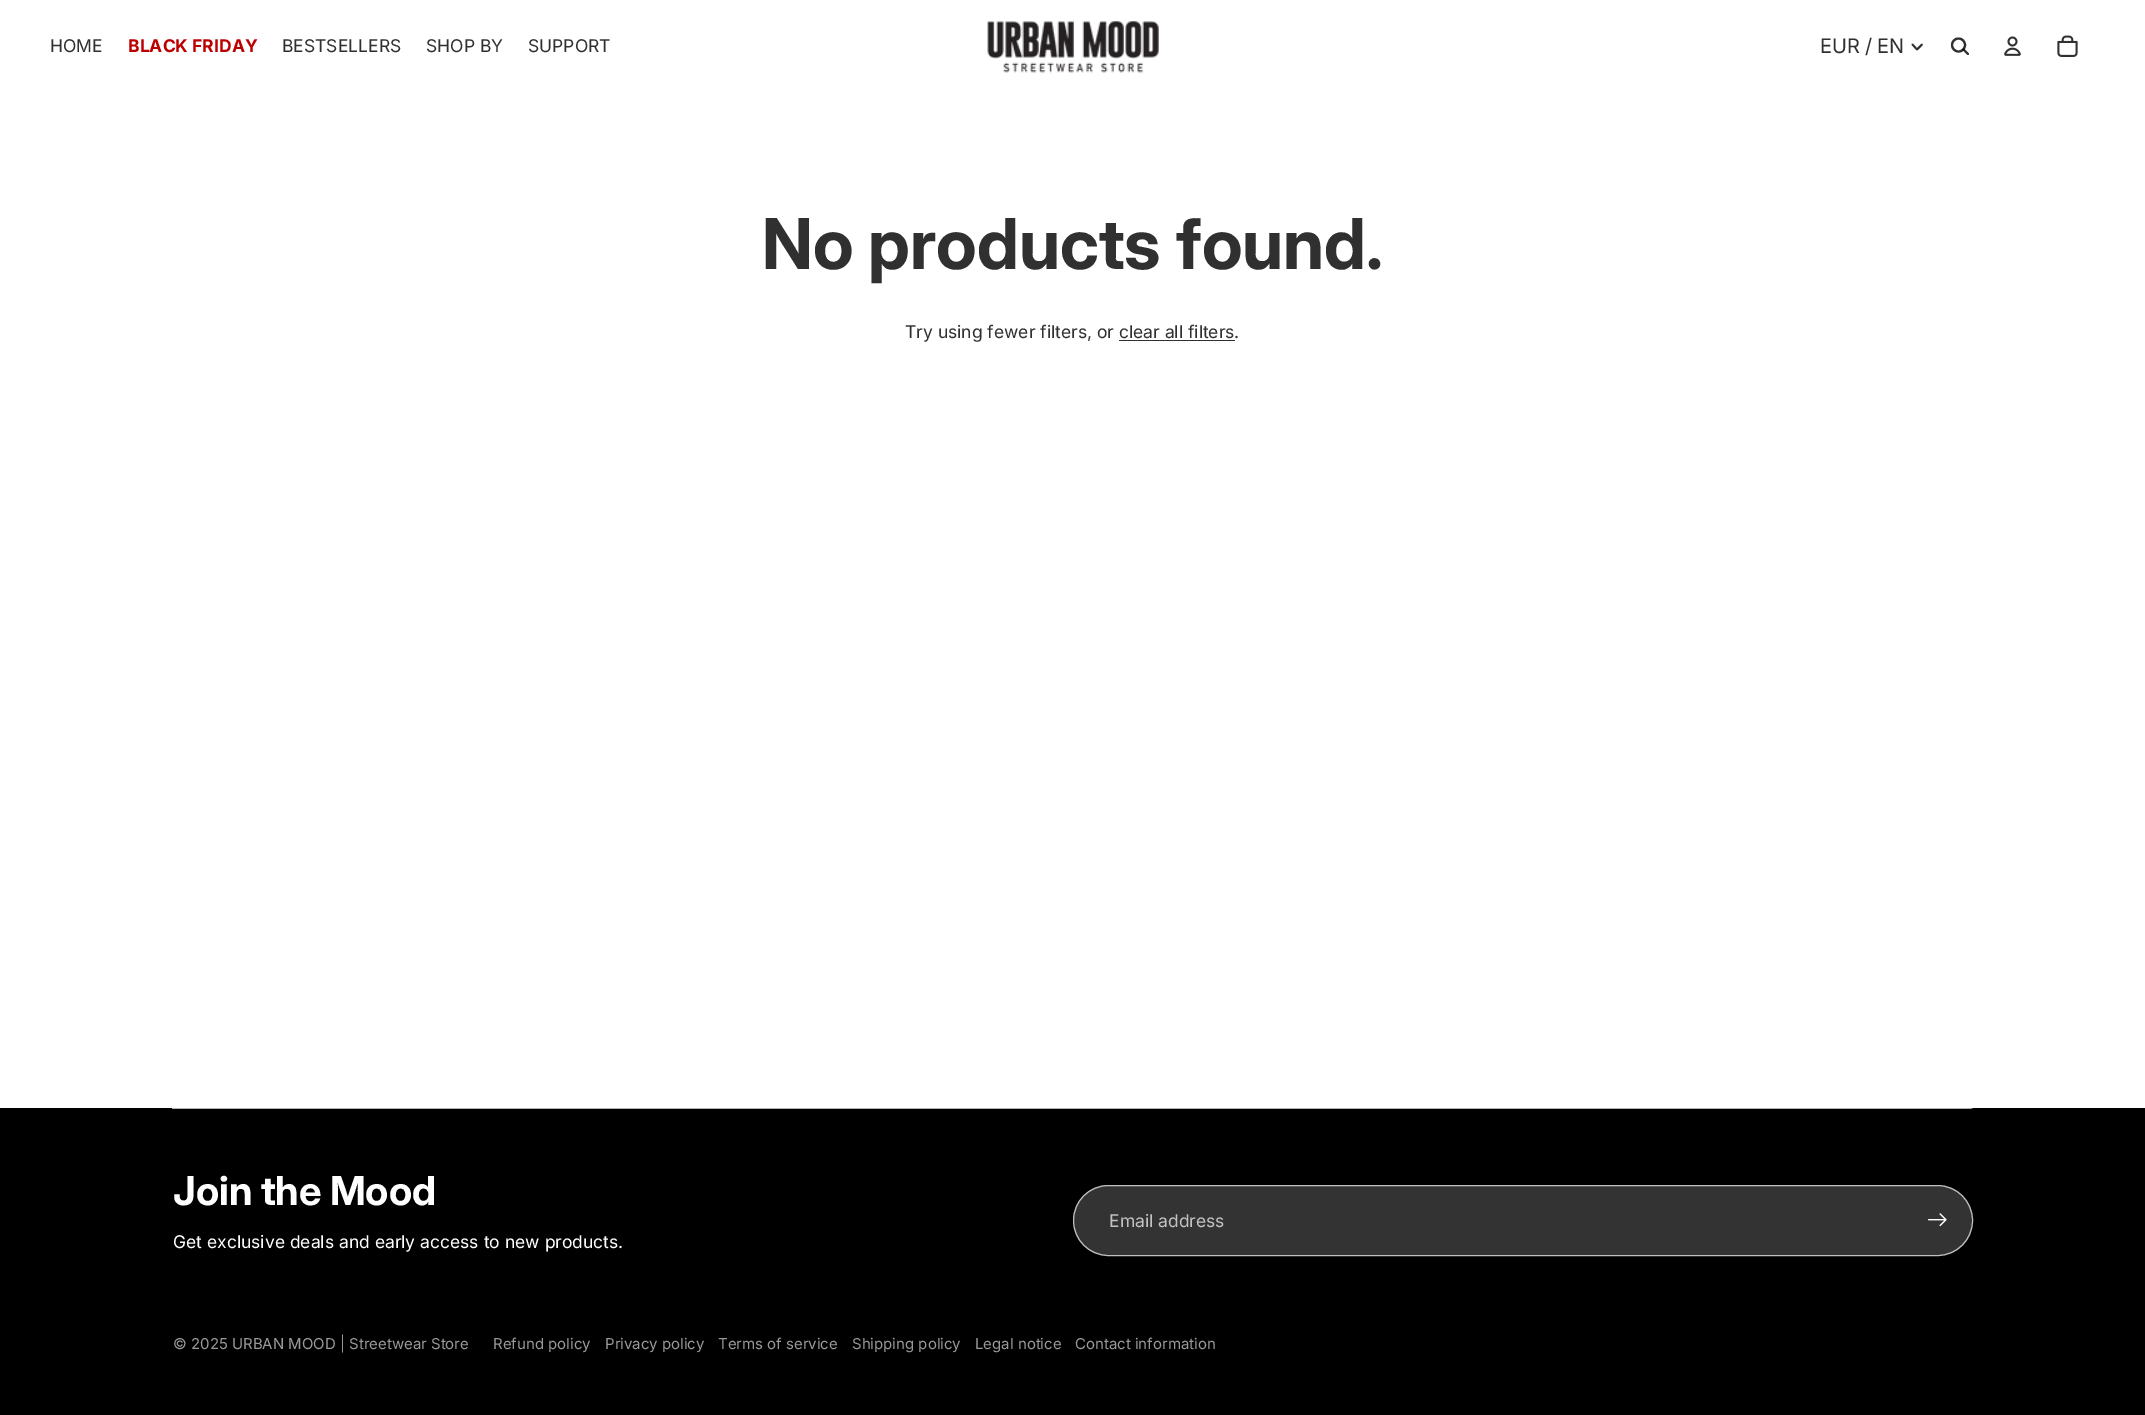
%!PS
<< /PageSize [2145 1415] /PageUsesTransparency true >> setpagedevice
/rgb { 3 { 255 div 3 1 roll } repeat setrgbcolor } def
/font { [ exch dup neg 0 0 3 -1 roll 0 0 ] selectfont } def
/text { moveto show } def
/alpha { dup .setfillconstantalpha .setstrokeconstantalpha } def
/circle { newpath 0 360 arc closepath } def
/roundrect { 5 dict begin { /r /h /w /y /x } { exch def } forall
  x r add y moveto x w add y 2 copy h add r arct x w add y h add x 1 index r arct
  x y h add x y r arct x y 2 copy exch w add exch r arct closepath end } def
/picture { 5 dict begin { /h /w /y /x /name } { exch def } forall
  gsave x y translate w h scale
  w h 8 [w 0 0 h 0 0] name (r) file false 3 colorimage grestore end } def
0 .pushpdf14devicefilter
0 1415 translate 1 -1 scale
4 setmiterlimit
255 255 255 rgb
0 0 2145 1415 rectfill
(img_01.rgb) 987 20 172 53 picture
48 48 48 rgb
1.8 setlinewidth
1 setlinecap
1 setlinejoin
1922 44.5 moveto -5 5 rlineto -4.5 -5 rlineto stroke
2.1 setlinewidth
0 setlinecap
0 setlinejoin
1958.5 45 6.5 circle stroke
0.81 alpha
0 0 0 rgb
1 setlinecap
1 setlinejoin
1963.5 49.5 moveto 4.5 4.5 rlineto stroke
1 alpha
(img_02.rgb) 2004 36 17 20 picture
(img_03.rgb) 2057 35 21 22 picture
48 48 48 rgb
1119 340 116 1 rectfill
0 0 0 rgb
0 1108 2145 307 rectfill
0.69 alpha
255 255 255 rgb
1972.5 1107.5 moveto 0 1.5 rlineto -1.5 -1.5 rlineto closepath fill
1972 1109 moveto -1800 0 rlineto 0 -1 rlineto 1799 0 rlineto closepath fill
1 alpha
51 51 51 rgb
1073 1185 900 71 35.5 roundrect fill
0.69 alpha
255 255 255 rgb
1 setlinewidth
0 setlinecap
0 setlinejoin
1073.5 1185.5 899 70 35 roundrect stroke
1 alpha
(img_04.rgb) 1928 1213 19 14 picture
/Inter-Regular 17.5 font
48 48 48 rgb
(HOME) 50 52 text
/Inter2-Bold 17.5 font
188 0 0 rgb
(BLACK FRIDAY) 128 52 text
/Inter-Regular 17.5 font
48 48 48 rgb
(BESTSELLERS) 282 52 text
(SHOP BY) 426 52 text
(SUPPORT) 528 52 text
/Inter-Regular 20 font
(EUR) 1820 53 text
/Inter2-Regular 20 font
(/) 1865 53 text
/Inter-Regular 20 font
(EN) 1877 53 text
/Inter-Bold 70 font
(No products found.) 762 269 text
/Inter-Regular 17.5 font
(Try using fewer filters, or clear all filters.) 905 338 text
/Inter-Bold 40 font
255 255 255 rgb
(Join the Mood) 173 1205 text
/Inter-Regular 17.5 font
(Get exclusive deals and early access to new products.) 173 1248 text
194 194 194 rgb
(Email address) 1109 1227 text
/Inter-Regular 15 font
153 153 153 rgb
(© 2025 URBAN MOOD | Streetwear Store) 173 1349 text
(Refund policy) 493 1349 text
(Privacy policy) 605 1349 text
(Terms of service) 718 1349 text
(Shipping policy) 852 1349 text
(Legal notice) 975 1349 text
(Contact information) 1075 1349 text
.poppdf14devicefilter showpage
